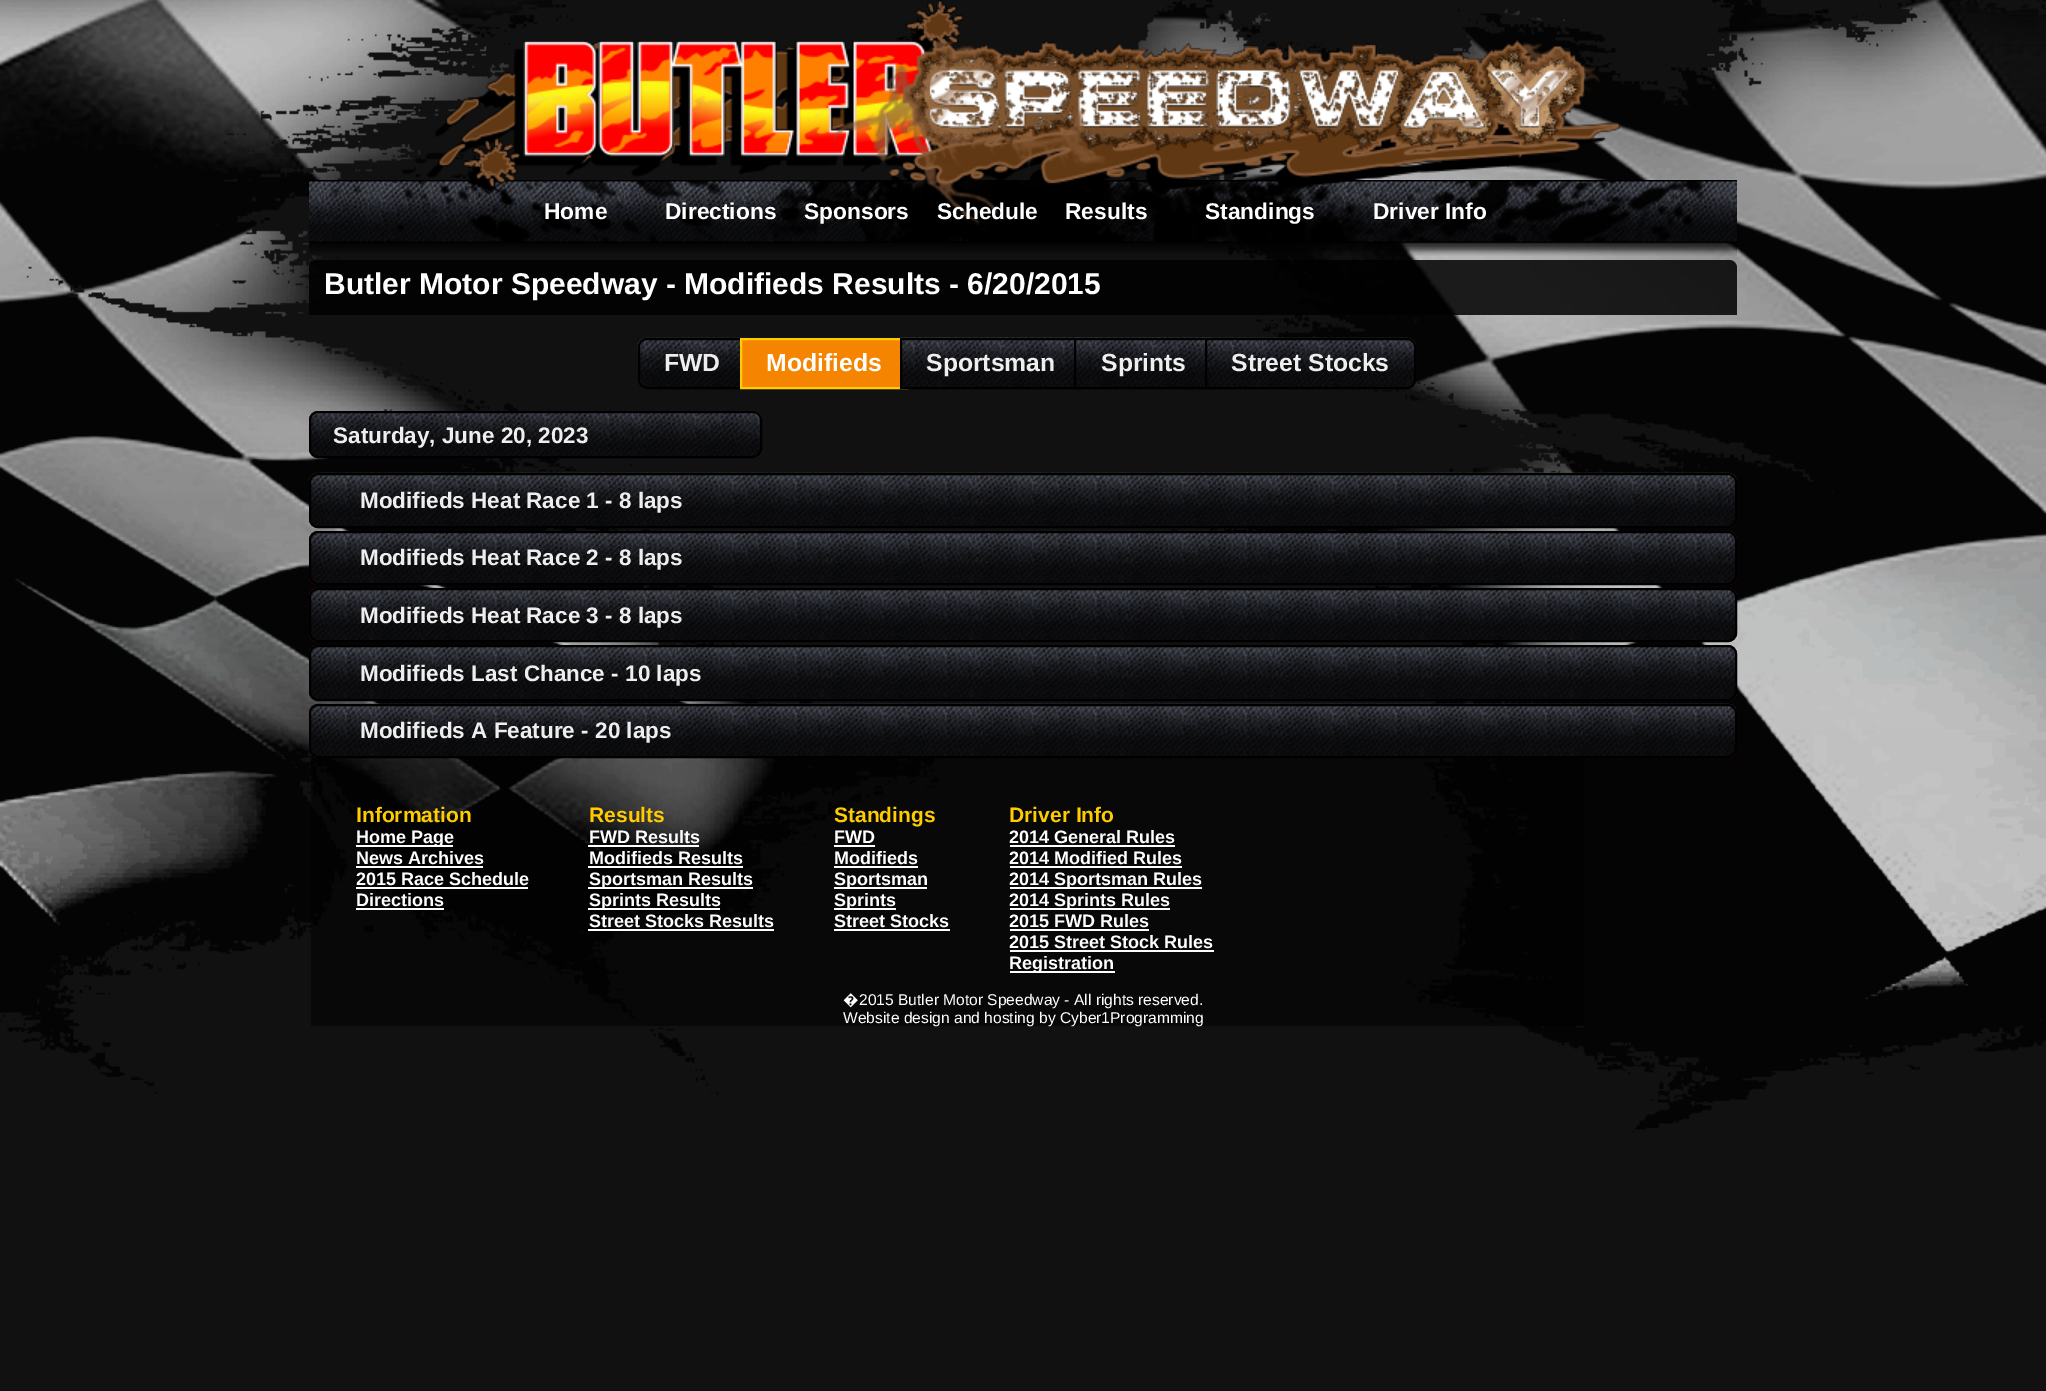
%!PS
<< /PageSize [2046 1391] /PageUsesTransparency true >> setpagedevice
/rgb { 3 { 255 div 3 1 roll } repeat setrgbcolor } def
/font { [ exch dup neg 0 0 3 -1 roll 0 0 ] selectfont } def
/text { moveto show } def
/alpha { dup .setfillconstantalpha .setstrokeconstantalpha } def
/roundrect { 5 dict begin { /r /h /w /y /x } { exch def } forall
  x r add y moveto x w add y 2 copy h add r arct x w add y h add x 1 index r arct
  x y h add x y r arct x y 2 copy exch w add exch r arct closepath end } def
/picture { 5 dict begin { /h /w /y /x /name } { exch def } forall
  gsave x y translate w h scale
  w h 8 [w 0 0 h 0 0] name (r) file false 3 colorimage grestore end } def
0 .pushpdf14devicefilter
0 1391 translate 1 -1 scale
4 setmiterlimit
17 17 17 rgb
0 0 2046 1391 rectfill
(img_01.rgb) 0 0 2046 1133 picture
(img_03.rgb) 309 180 1428 76 picture
(img_02.rgb) 427 0 1193 231 picture
0.85 alpha
0 0 0 rgb
317 260 moveto 1412 0 rlineto 4.5 0 8 3.5 8 8 rcurveto 0 47 rlineto -1428 0 rlineto 0 -47 rlineto 0 -4.5 3.5 -8 8 -8 rcurveto closepath fill
1 alpha
(img_04.rgb) 637 337 110 52 picture
2 setlinewidth
647 339 moveto 99 0 rlineto 0 49 rlineto -99 0 rlineto -4.5 0 -8 -3.5 -8 -8 rcurveto 0 -33 rlineto 0 -4.5 3.5 -8 8 -8 rcurveto closepath stroke
245 132 0 rgb
742 340 158 47 rectfill
255 204 0 rgb
741 339 166 49 rectstroke
(img_05.rgb) 900 337 182 50 picture
0 0 0 rgb
901 339 180 49 rectstroke
(img_06.rgb) 1074 337 138 50 picture
1075 339 136 49 rectstroke
(img_07.rgb) 1204 337 212 52 picture
1206 339 moveto 201 0 rlineto 4.5 0 8 3.5 8 8 rcurveto 0 33 rlineto 0 4.5 -3.5 8 -8 8 rcurveto -201 0 rlineto closepath stroke
(img_08.rgb) 309 411 453 47 picture
310 412 451 45 8 roundrect stroke
(img_09.rgb) 309 472 1428 56 picture
310 474 1426 53 8 roundrect stroke
(img_10.rgb) 309 531 1428 54 picture
310 532 1426 52 8 roundrect stroke
(img_11.rgb) 309 588 1428 54 picture
310 589 1426 52 8 roundrect stroke
(img_12.rgb) 309 645 1428 56 picture
310 646 1426 54 8 roundrect stroke
(img_13.rgb) 309 703 1428 55 picture
310 705 1426 52 8 roundrect stroke
0.5 alpha
311 758 1273 268 rectfill
1 alpha
255 255 255 rgb
356 845 97 2 rectfill
356 866 127 2 rectfill
356 887 172 2 rectfill
356 908 88 2 rectfill
588 845 111 2 rectfill
588 866 155 2 rectfill
588 887 165 2 rectfill
588 908 132 2 rectfill
588 929 186 2 rectfill
834 845 41 2 rectfill
834 866 84 2 rectfill
834 887 93 2 rectfill
834 908 62 2 rectfill
834 929 116 2 rectfill
1010 845 165 2 rectfill
1010 866 172 2 rectfill
1010 887 192 2 rectfill
1010 908 160 2 rectfill
1010 929 139 2 rectfill
1010 950 204 2 rectfill
1010 971 105 2 rectfill
/LiberationSans-Bold 22.75 font
(Home) 544 219 text
(Directions) 665 219 text
(Sponsors) 804 219 text
(Schedule) 937 219 text
(Results) 1065 219 text
(Standings) 1205 219 text
(Driver Info) 1373 219 text
/LiberationSans-Bold 30 font
(Butler Motor Speedway - Modifieds Results - 6/20/2015) 324 294 text
/LiberationSans-Bold 24.75 font
238 238 238 rgb
(FWD) 664 371 text
255 255 255 rgb
(Modifieds) 766 371 text
238 238 238 rgb
(Sportsman) 926 371 text
(Sprints) 1101 371 text
(Street Stocks) 1231 371 text
/LiberationSans-Bold 22.5 font
(Saturday, June 20, 2023) 333 443 text
(Modifieds Heat Race 1 - 8 laps) 360 508 text
(Modifieds Heat Race 2 - 8 laps) 360 565 text
(Modifieds Heat Race 3 - 8 laps) 360 623 text
(Modifieds Last Chance - 10 laps) 360 681 text
(Modifieds A Feature - 20 laps) 360 738 text
/LiberationSans-Bold 21 font
255 204 0 rgb
(Information) 356 822 text
/LiberationSans-Bold 18 font
255 255 255 rgb
(Home Page) 356 843 text
(News Archives) 356 864 text
(2015 Race Schedule) 356 885 text
(Directions) 356 906 text
/LiberationSans-Bold 21 font
255 204 0 rgb
(Results) 589 822 text
/LiberationSans-Bold 18 font
255 255 255 rgb
(FWD Results) 589 843 text
(Modifieds Results) 589 864 text
(Sportsman Results) 589 885 text
(Sprints Results) 589 906 text
(Street Stocks Results) 589 927 text
/LiberationSans-Bold 21 font
255 204 0 rgb
(Standings) 834 822 text
/LiberationSans-Bold 18 font
255 255 255 rgb
(FWD) 834 843 text
(Modifieds) 834 864 text
(Sportsman) 834 885 text
(Sprints) 834 906 text
(Street Stocks) 834 927 text
/LiberationSans-Bold 21 font
255 204 0 rgb
(Driver Info) 1009 822 text
/LiberationSans-Bold 18 font
255 255 255 rgb
(2014 General Rules) 1009 843 text
(2014 Modified Rules) 1009 864 text
(2014 Sportsman Rules) 1009 885 text
(2014 Sprints Rules) 1009 906 text
(2015 FWD Rules) 1009 927 text
(2015 Street Stock Rules) 1009 948 text
(Registration) 1009 969 text
/NotoSans-Regular 15.6 font
(�) 843 1005 text
/LiberationSans-Regular 15.6 font
(2015 Butler Motor Speedway - All rights reserved.) 859 1005 text
(Website design and hosting by Cyber1Programming) 843 1023 text
.poppdf14devicefilter showpage
